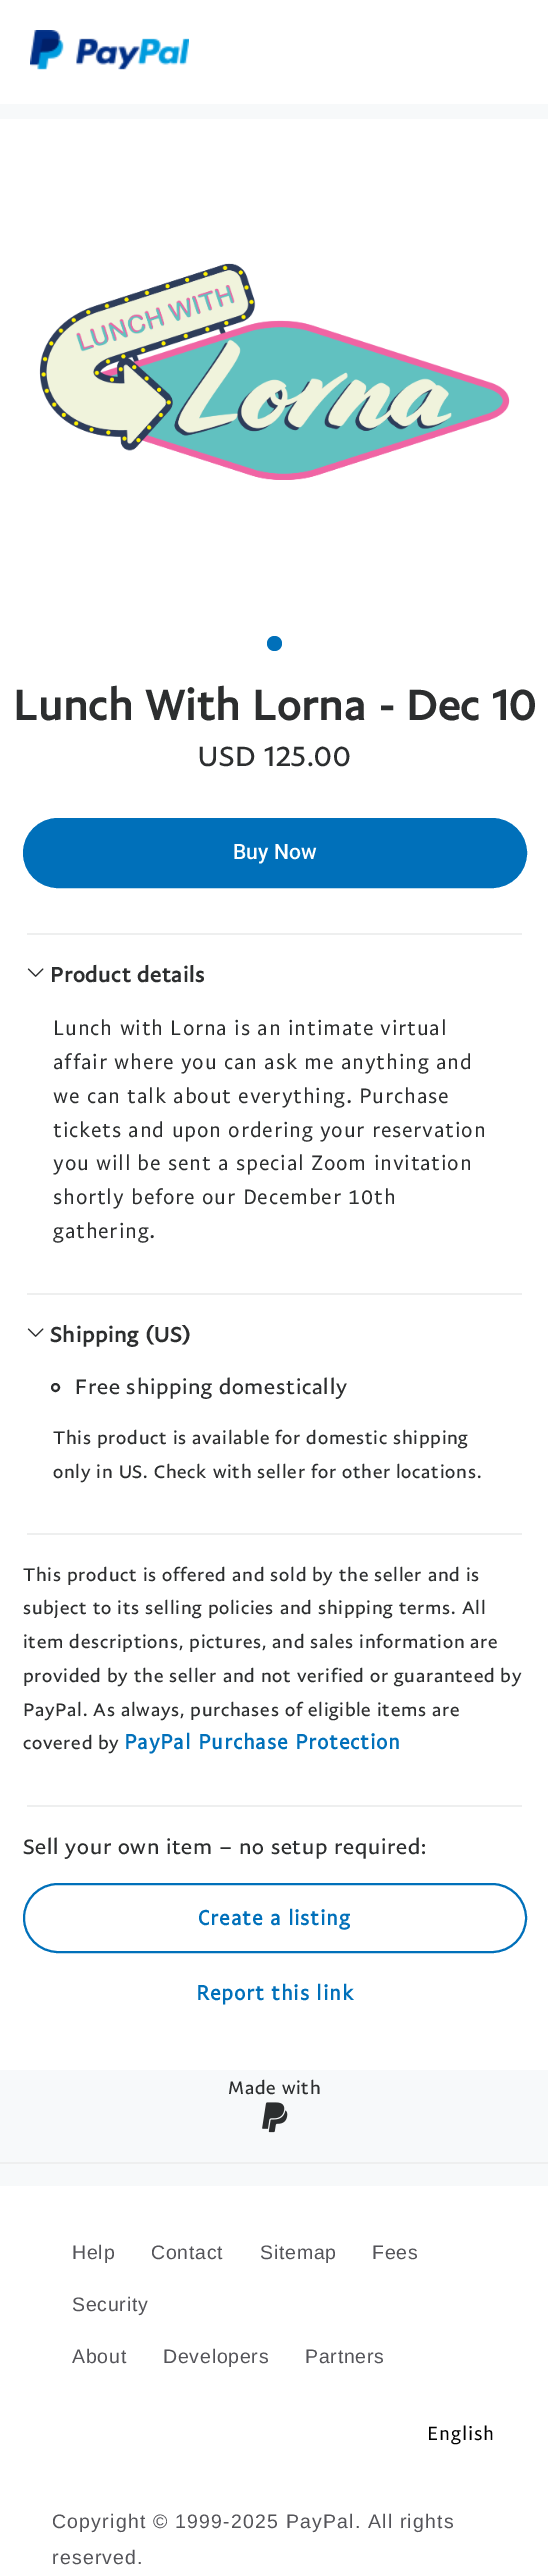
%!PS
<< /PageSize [548 2576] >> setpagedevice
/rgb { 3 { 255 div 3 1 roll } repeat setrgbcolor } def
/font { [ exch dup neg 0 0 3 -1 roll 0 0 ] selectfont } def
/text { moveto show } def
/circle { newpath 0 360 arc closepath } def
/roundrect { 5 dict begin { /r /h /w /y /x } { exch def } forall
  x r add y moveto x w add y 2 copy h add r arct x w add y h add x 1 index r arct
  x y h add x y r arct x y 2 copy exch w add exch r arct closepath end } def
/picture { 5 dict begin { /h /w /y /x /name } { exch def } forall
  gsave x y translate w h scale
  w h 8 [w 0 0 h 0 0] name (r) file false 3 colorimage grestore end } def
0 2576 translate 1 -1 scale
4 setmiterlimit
247 249 250 rgb
0 0 548 2576 rectfill
255 255 255 rgb
0 0 548 104 rectfill
(img_01.rgb) 30 30 159 40 picture
0 119 548 1951 rectfill
(img_02.rgb) 39 263 471 217 picture
0 112 186 rgb
274.5 643.5 7.5 circle fill
24 819 502 68 34 roundrect gsave fill grestore
2 setlinewidth
stroke
238 239 239 rgb
27 933 495 2 rectfill
(img_03.rgb) 27 968 17 9 picture
27 1293 495 2 rectfill
(img_03.rgb) 27 1328 17 9 picture
44 46 47 rgb
55.5 1387.5 3.5 circle stroke
238 239 239 rgb
27 1533 495 2 rectfill
27 1805 495 2 rectfill
0 112 186 rgb
24 1884 502 68 34 roundrect stroke
(img_04.rgb) 262 2102 26 31 picture
238 239 239 rgb
0 2162 548 2 rectfill
255 255 255 rgb
0 2186 548 390 rectfill
/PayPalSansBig-Bold 42.25 font
44 46 47 rgb
13 720 moveto 0.75 0 (Lunch With Lorna - Dec 10) ashow
/PayPalSansBig-Regular 28 font
198 766 moveto 0.75 0 (USD 125.00) ashow
/Roboto-Medium 21.1 font
255 255 255 rgb
(Buy Now) 233 859 text
/PayPalSansBig-Bold 21.1 font
44 46 47 rgb
50 982 moveto 0.75 0 (Product details) ashow
/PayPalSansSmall-Regular 21.1 font
53 1035 moveto 0.75 0 (Lunch with Lorna is an intimate virtual) ashow
53 1069 moveto 0.75 0 (affair where you can ask me anything and) ashow
53 1103 moveto 0.75 0 (we can talk about everything.) ashow
359 1103 moveto 0.75 0 (Purchase) ashow
53 1137 moveto 0.75 0 (tickets and upon ordering your reservation) ashow
53 1170 moveto 0.75 0 (you will be sent a special Zoom invitation) ashow
53 1204 moveto 0.75 0 (shortly before our December 10th) ashow
53 1238 moveto 0.75 0 (gathering.) ashow
/PayPalSansBig-Bold 21.1 font
50 1342 moveto 0.75 0 (Shipping \(US\)) ashow
/PayPalSansBig-Regular 21.1 font
75 1394 moveto 0.75 0 (Free shipping domestically) ashow
/PayPalSansBig-Regular 18.25 font
53 1444 moveto 0.75 0 (This product is available for domestic shipping) ashow
53 1478 moveto 0.75 0 (only in US. Check with seller for other locations.) ashow
23 1581 moveto 0.75 0 (This product is offered and sold by the seller and is) ashow
23 1614 moveto 0.75 0 (subject to its selling policies and shipping terms. All) ashow
23 1648 moveto 0.75 0 (item descriptions, pictures, and sales information are) ashow
23 1682 moveto 0.75 0 (provided by the seller and not verified or guaranteed by) ashow
23 1716 moveto 0.75 0 (PayPal. As always, purchases of eligible items are) ashow
23 1749 moveto 0.75 0 (covered by) ashow
/PayPalSansSmall-Bold 21.1 font
0 112 186 rgb
124 1749 moveto 0.75 0 (PayPal Purchase Protection) ashow
/PayPalSansBig-Regular 21.1 font
44 46 47 rgb
23 1854 moveto 0.75 0 (Sell your own item – no setup required:) ashow
/PayPalSansSmall-Bold 21.1 font
0 112 186 rgb
198 1925 moveto 0.75 0 (Create a listing) ashow
196 2000 moveto 0.75 0 (Report this link) ashow
/PayPalSansBig-Regular 18.25 font
44 46 47 rgb
228 2094 moveto 0.75 0 (Made with) ashow
/LiberationSans-Regular 19.5 font
84 84 89 rgb
72 2259 moveto 0.75 0 (Help) ashow
151 2259 moveto 0.75 0 (Contact) ashow
260 2259 moveto 0.75 0 (Sitemap) ashow
372 2259 moveto 0.75 0 (Fees) ashow
72 2311 moveto 0.75 0 (Security) ashow
72 2363 moveto 0.75 0 (About) ashow
163 2363 moveto 0.75 0 (Developers) ashow
305 2363 moveto 0.75 0 (Partners) ashow
/PayPalSansSmall-Regular 19.5 font
0 0 0 rgb
427 2440 moveto 0.75 0 (English) ashow
/LiberationSans-Regular 19.5 font
84 84 89 rgb
52 2528 moveto 1.2 0 (Copyright © 1999-2025 PayPal. All rights) ashow
52 2564 moveto 1.2 0 (reserved.) ashow
showpage
